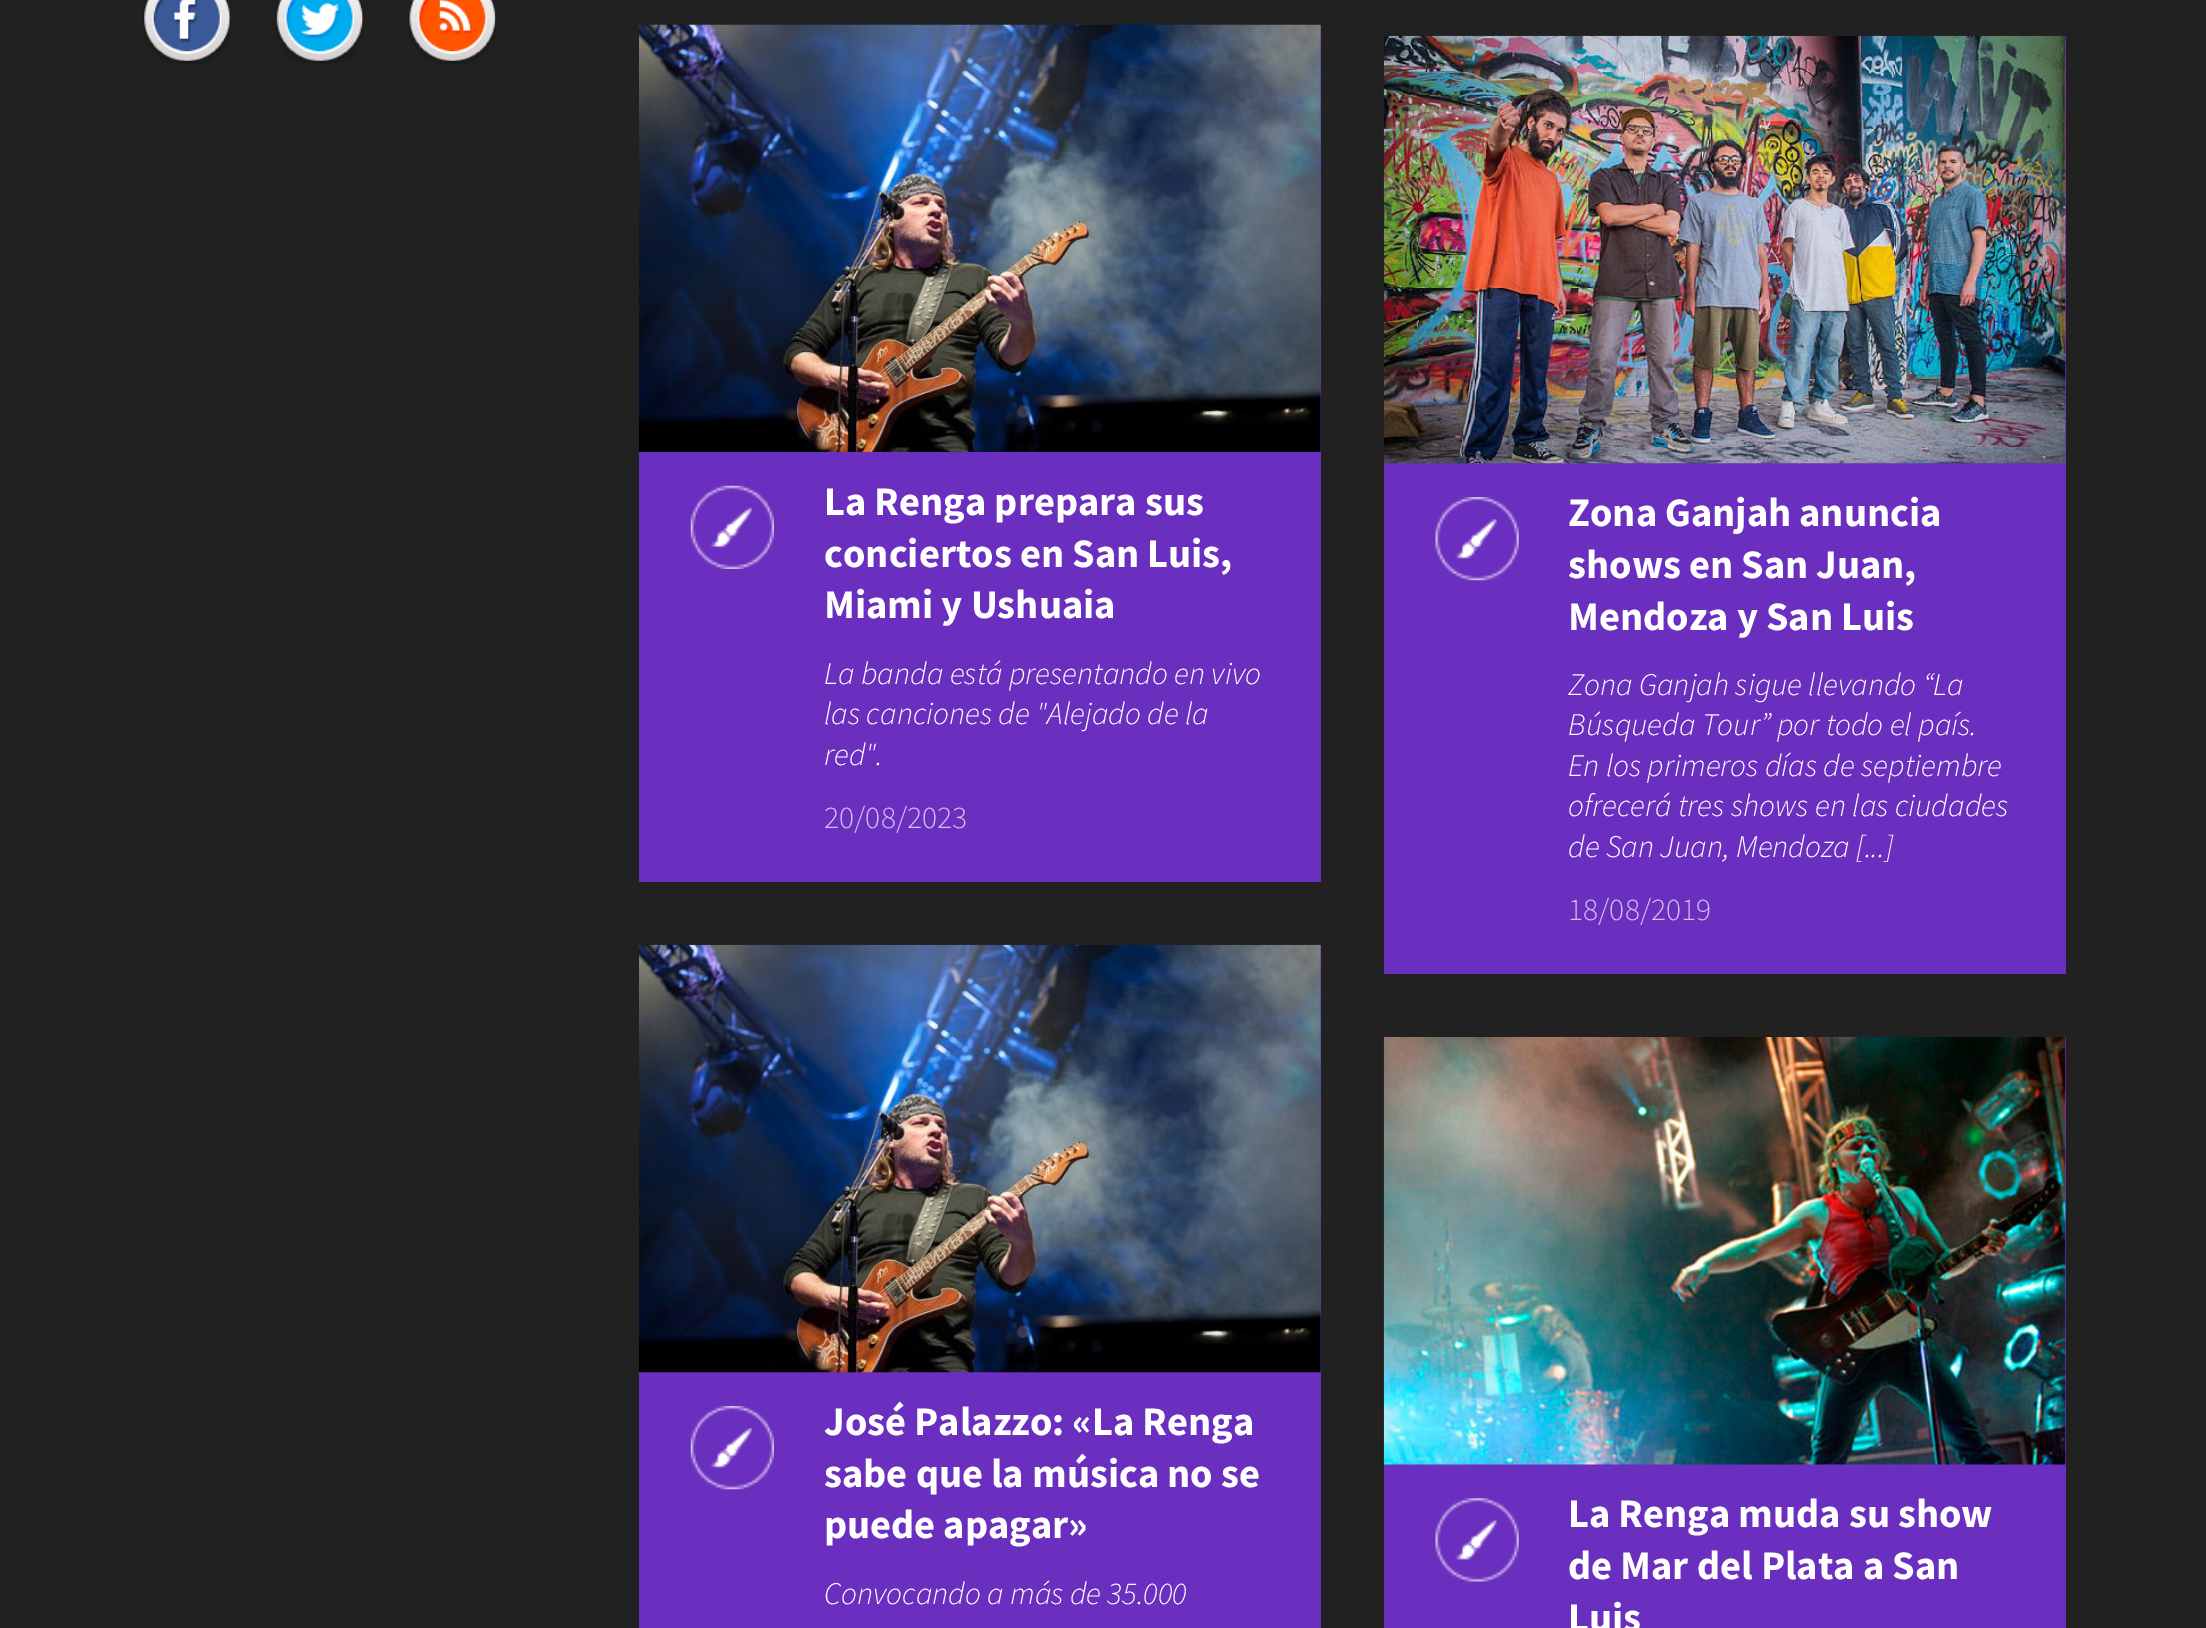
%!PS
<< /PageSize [2206 1628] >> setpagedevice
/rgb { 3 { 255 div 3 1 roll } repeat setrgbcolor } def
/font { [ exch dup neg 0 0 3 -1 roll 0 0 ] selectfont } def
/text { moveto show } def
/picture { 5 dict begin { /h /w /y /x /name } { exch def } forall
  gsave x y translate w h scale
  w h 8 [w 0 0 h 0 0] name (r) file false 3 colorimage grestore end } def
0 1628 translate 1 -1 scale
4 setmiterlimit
33 33 33 rgb
0 0 2206 1628 rectfill
(img_01.rgb) 143 0 88 65 picture
(img_02.rgb) 275 0 89 65 picture
(img_03.rgb) 408 0 89 65 picture
107 47 192 rgb
639 25 682 857 rectfill
(img_04.rgb) 639 24 682 428 picture
(img_05.rgb) 690 485 84 84 picture
1384 36 682 938 rectfill
(img_06.rgb) 1383 35 683 429 picture
(img_07.rgb) 1435 497 84 84 picture
639 945 682 683 rectfill
(img_08.rgb) 639 944 682 429 picture
(img_09.rgb) 690 1406 84 84 picture
1384 1037 682 591 rectfill
(img_10.rgb) 1383 1037 683 428 picture
(img_11.rgb) 1435 1498 84 84 picture
/SourceSansPro-Bold 40.5 font
255 255 255 rgb
(La Renga prepara sus) 824 515 text
(conciertos en San Luis,) 824 567 text
(Miami y Ushuaia) 824 618 text
/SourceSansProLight-LightItalic 31.5 font
(La banda está presentando en vivo) 824 684 text
(las canciones de "Alejado de la) 824 724 text
(red".) 824 765 text
/SourceSansProLight-Light 31.5 font
211 193 236 rgb
(20/08/2023) 824 828 text
/SourceSansPro-Bold 40.5 font
255 255 255 rgb
(Zona Ganjah anuncia) 1568 526 text
(shows en San Juan,) 1568 578 text
(Mendoza y San Luis) 1568 630 text
/SourceSansProLight-LightItalic 31.5 font
(Zona Ganjah sigue llevando “La) 1568 695 text
(Búsqueda Tour” por todo el país.) 1568 735 text
(En los primeros días de septiembre) 1568 776 text
(ofrecerá tres shows en las ciudades) 1568 816 text
(de San Juan, Mendoza [...]) 1568 857 text
/SourceSansProLight-Light 31.5 font
211 193 236 rgb
(18/08/2019) 1568 920 text
/SourceSansPro-Bold 40.5 font
255 255 255 rgb
(José Palazzo: «La Renga) 824 1435 text
(sabe que la música no se) 824 1487 text
(puede apagar») 824 1538 text
/SourceSansProLight-LightItalic 31.5 font
(Convocando a más de 35.000) 824 1604 text
/SourceSansPro-Bold 40.5 font
(La Renga muda su show) 1568 1527 text
(de Mar del Plata a San) 1568 1579 text
(Luis) 1568 1631 text
showpage
